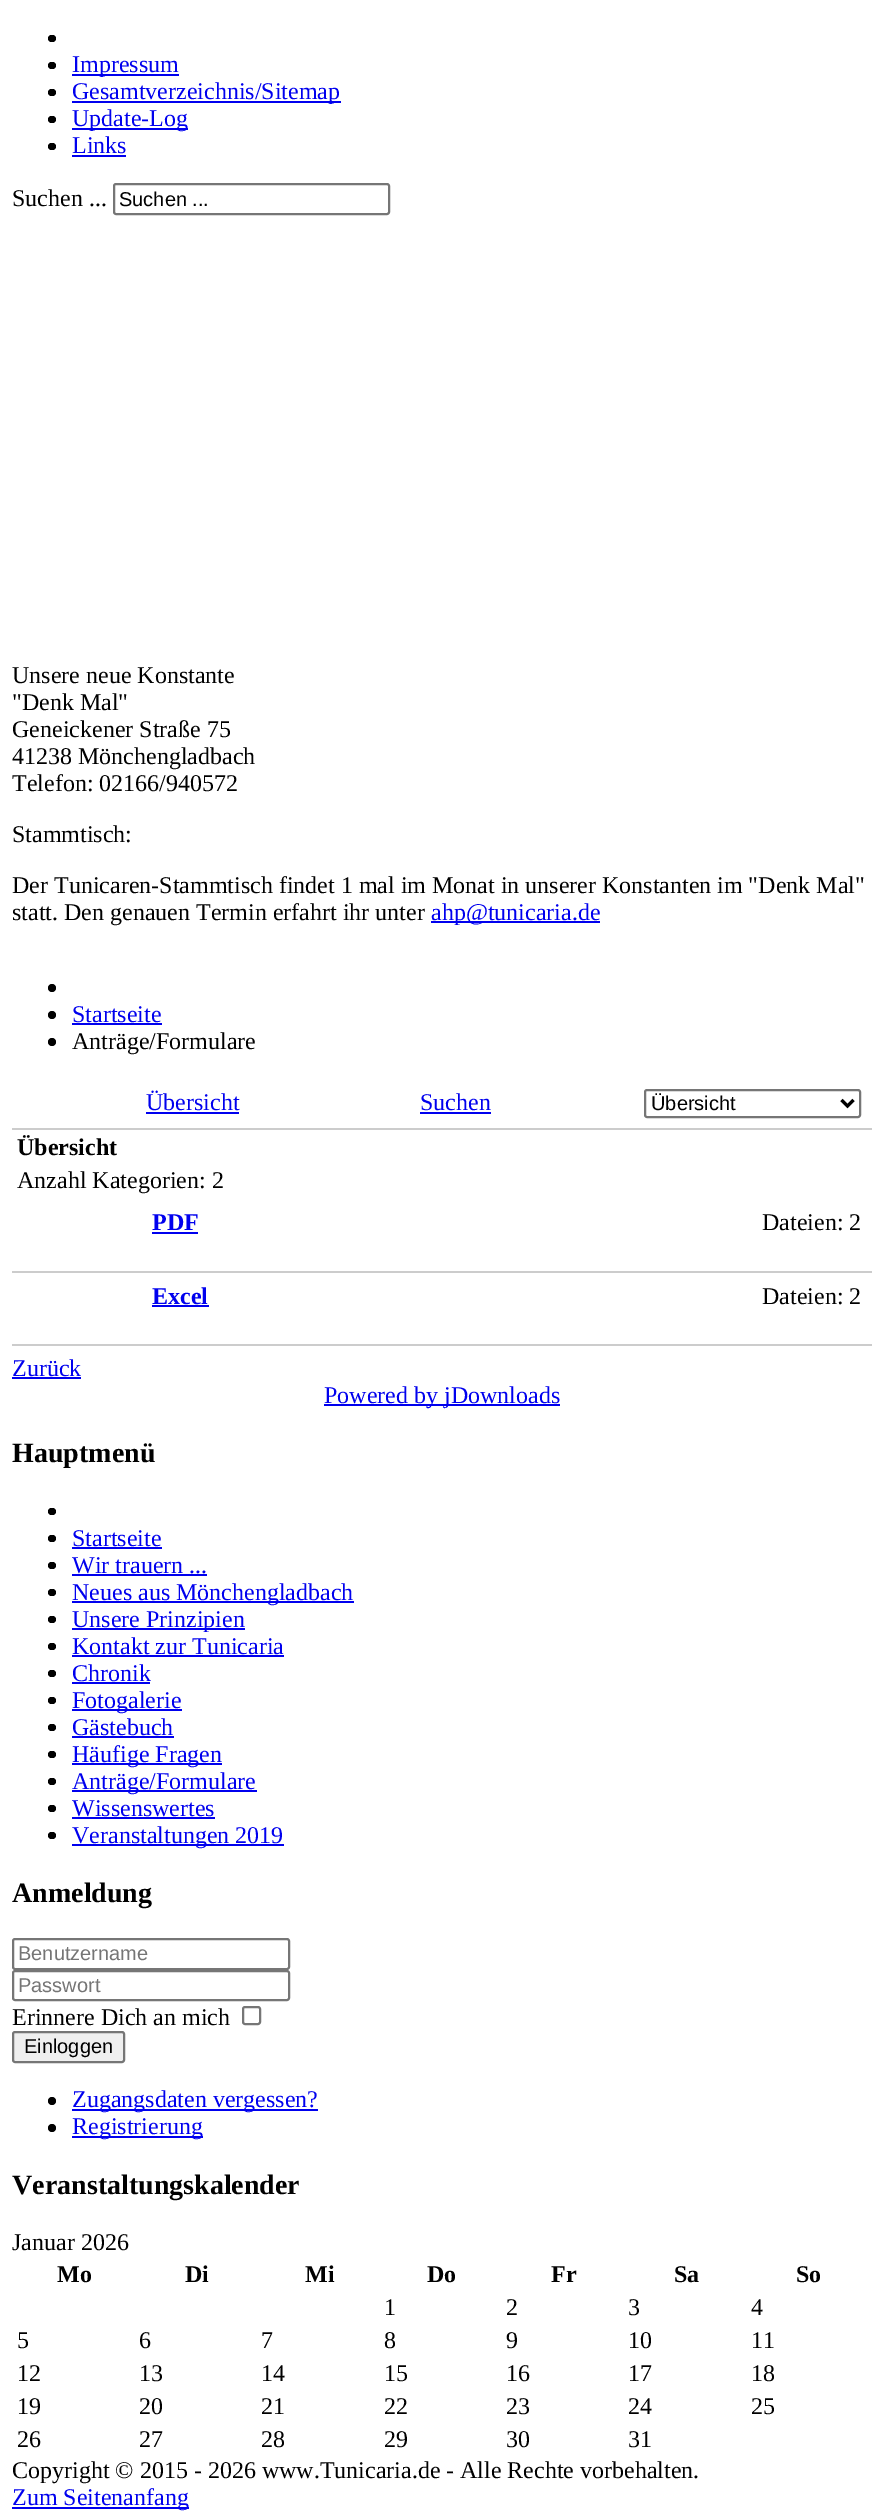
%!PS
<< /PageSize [883 2516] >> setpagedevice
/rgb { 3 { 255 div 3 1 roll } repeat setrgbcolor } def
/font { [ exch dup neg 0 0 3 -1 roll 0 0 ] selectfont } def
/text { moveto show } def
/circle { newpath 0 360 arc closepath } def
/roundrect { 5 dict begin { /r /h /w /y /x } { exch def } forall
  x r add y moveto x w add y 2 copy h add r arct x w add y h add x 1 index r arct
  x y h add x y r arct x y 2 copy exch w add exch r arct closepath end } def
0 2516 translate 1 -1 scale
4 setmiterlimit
255 255 255 rgb
0 0 883 2516 rectfill
0 0 0 rgb
48 35 8 7 3.5 roundrect fill
48 62 8 7 3.5 roundrect fill
0 0 238 rgb
72 74 107 2 rectfill
0 0 0 rgb
48 89 8 7 3.5 roundrect fill
0 0 238 rgb
72 101 269 2 rectfill
0 0 0 rgb
48 116 8 7 3.5 roundrect fill
0 0 238 rgb
72 128 116 2 rectfill
0 0 0 rgb
48 143 8 7 3.5 roundrect fill
0 0 238 rgb
72 155 54 2 rectfill
118 118 118 rgb
2 setlinewidth
114 184 275 30 2 roundrect stroke
0 0 238 rgb
431 921 169 2 rectfill
0 0 0 rgb
52 988 4 circle fill
52 1015 4 circle fill
0 0 238 rgb
72 1023 90 2 rectfill
0 0 0 rgb
52 1042 4 circle fill
204 204 204 rgb
12 1128 860 2 rectfill
0 0 238 rgb
146 1112 93 2 rectfill
420 1112 71 2 rectfill
118 118 118 rgb
645 1090 215 27 2 roundrect stroke
0 0 0 rgb
3 setlinewidth
841.5 1100 moveto 6 6 rlineto 6 -6 rlineto stroke
204 204 204 rgb
12 1271 860 2 rectfill
0 0 238 rgb
152 1232 46 2 rectfill
204 204 204 rgb
12 1344 860 2 rectfill
0 0 238 rgb
152 1305 57 2 rectfill
12 1377 69 2 rectfill
324 1404 236 2 rectfill
0 0 0 rgb
48 1508 8 7 3.5 roundrect fill
48 1535 8 7 3.5 roundrect fill
0 0 238 rgb
72 1547 90 2 rectfill
0 0 0 rgb
48 1562 8 7 3.5 roundrect fill
0 0 238 rgb
72 1574 135 2 rectfill
0 0 0 rgb
48 1589 8 7 3.5 roundrect fill
0 0 238 rgb
72 1601 282 2 rectfill
0 0 0 rgb
48 1616 8 7 3.5 roundrect fill
0 0 238 rgb
72 1628 173 2 rectfill
0 0 0 rgb
48 1643 8 7 3.5 roundrect fill
0 0 238 rgb
72 1655 212 2 rectfill
0 0 0 rgb
48 1670 8 7 3.5 roundrect fill
0 0 238 rgb
72 1682 78 2 rectfill
0 0 0 rgb
48 1697 8 7 3.5 roundrect fill
0 0 238 rgb
72 1709 110 2 rectfill
0 0 0 rgb
48 1724 8 7 3.5 roundrect fill
0 0 238 rgb
72 1736 102 2 rectfill
0 0 0 rgb
48 1751 8 7 3.5 roundrect fill
0 0 238 rgb
72 1763 150 2 rectfill
0 0 0 rgb
48 1778 8 7 3.5 roundrect fill
0 0 238 rgb
72 1790 185 2 rectfill
0 0 0 rgb
48 1805 8 7 3.5 roundrect fill
0 0 238 rgb
72 1817 143 2 rectfill
0 0 0 rgb
48 1832 8 7 3.5 roundrect fill
0 0 238 rgb
72 1844 212 2 rectfill
118 118 118 rgb
2 setlinewidth
13 1939 276 30 2 roundrect stroke
13 1971 276 29 2 roundrect stroke
243 2007 17 17 2 roundrect stroke
239 239 239 rgb
13 2032 111 30 2 roundrect gsave fill grestore
118 118 118 rgb
stroke
0 0 0 rgb
52 2101 4 circle fill
0 0 238 rgb
72 2109 246 2 rectfill
0 0 0 rgb
52 2128 4 circle fill
0 0 238 rgb
72 2136 131 2 rectfill
12 2507 177 2 rectfill
/LiberationSerif-Regular 24 font
(Impressum) 72 72 text
(Gesamtverzeichnis/Sitemap) 72 99 text
(Update-Log) 72 126 text
(Links) 72 153 text
0 0 0 rgb
(Suchen ...) 12 206 text
/LiberationSans-Regular 20 font
(Suchen ...) 119 206 text
/LiberationSerif-Regular 24 font
(Unsere neue Konstante) 12 683 text
("Denk Mal") 12 710 text
(Geneickener Straße 75) 12 737 text
(41238 Mönchengladbach) 12 764 text
(Telefon: 02166/940572) 12 791 text
(Stammtisch:) 12 842 text
(Der Tunicaren-Stammtisch findet 1 mal im Monat in unserer Konstanten im "Denk Mal") 12 893 text
(statt. Den genauen Termin erfahrt ihr unter) 12 920 text
0 0 238 rgb
(ahp@tunicaria.de) 431 920 text
(Startseite) 72 1022 text
0 0 0 rgb
(Anträge/Formulare) 72 1049 text
0 0 238 rgb
(Übersicht) 146 1110 text
(Suchen) 420 1110 text
/LiberationSans-Regular 20 font
0 0 0 rgb
(Übersicht) 651 1110 text
/LiberationSerif-Bold 24 font
(Übersicht) 17 1155 text
/LiberationSerif-Regular 24 font
(Anzahl Kategorien: 2) 17 1188 text
/LiberationSerif-Bold 24 font
0 0 238 rgb
(PDF) 152 1230 text
/LiberationSerif-Regular 24 font
0 0 0 rgb
(Dateien: 2) 762 1230 text
/LiberationSerif-Bold 24 font
0 0 238 rgb
(Excel) 152 1304 text
/LiberationSerif-Regular 24 font
0 0 0 rgb
(Dateien: 2) 762 1304 text
0 0 238 rgb
(Zurück) 12 1376 text
(Powered by jDownloads) 324 1403 text
/LiberationSerif-Bold 28 font
0 0 0 rgb
(Hauptmenü) 12 1462 text
/LiberationSerif-Regular 24 font
0 0 238 rgb
(Startseite) 72 1546 text
(Wir trauern ...) 72 1573 text
(Neues aus Mönchengladbach) 72 1600 text
(Unsere Prinzipien) 72 1627 text
(Kontakt zur Tunicaria) 72 1654 text
(Chronik) 72 1681 text
(Fotogalerie) 72 1708 text
(Gästebuch) 72 1735 text
(Häufige Fragen) 72 1762 text
(Anträge/Formulare) 72 1789 text
(Wissenswertes) 72 1816 text
(Veranstaltungen 2019) 72 1843 text
/LiberationSerif-Bold 28 font
0 0 0 rgb
(Anmeldung) 12 1902 text
/LiberationSans-Regular 20 font
117 117 117 rgb
(Benutzername) 18 1960 text
(Passwort) 18 1992 text
/LiberationSerif-Regular 24 font
0 0 0 rgb
(Erinnere Dich an mich) 12 2025 text
/LiberationSans-Regular 20 font
(Einloggen) 24 2053 text
/LiberationSerif-Regular 24 font
0 0 238 rgb
(Zugangsdaten vergessen?) 72 2107 text
(Registrierung) 72 2134 text
/LiberationSerif-Bold 28 font
0 0 0 rgb
(Veranstaltungskalender) 12 2194 text
/LiberationSerif-Regular 24 font
(Januar 2026) 12 2250 text
/LiberationSerif-Bold 24 font
(Mo) 57 2282 text
(Di) 185 2282 text
(Mi) 305 2282 text
(Do) 427 2282 text
(Fr) 551 2282 text
(Sa) 674 2282 text
(So) 796 2282 text
/LiberationSerif-Regular 24 font
(1) 384 2315 text
(2) 506 2315 text
(3) 628 2315 text
(4) 751 2315 text
(5) 17 2348 text
(6) 139 2348 text
(7) 261 2348 text
(8) 384 2348 text
(9) 506 2348 text
(10) 628 2348 text
(11) 751 2348 text
(12) 17 2381 text
(13) 139 2381 text
(14) 261 2381 text
(15) 384 2381 text
(16) 506 2381 text
(17) 628 2381 text
(18) 751 2381 text
(19) 17 2414 text
(20) 139 2414 text
(21) 261 2414 text
(22) 384 2414 text
(23) 506 2414 text
(24) 628 2414 text
(25) 751 2414 text
(26) 17 2447 text
(27) 139 2447 text
(28) 261 2447 text
(29) 384 2447 text
(30) 506 2447 text
(31) 628 2447 text
(Copyright © 2015 - 2026 www.Tunicaria.de - Alle Rechte vorbehalten.) 12 2478 text
0 0 238 rgb
(Zum Seitenanfang) 12 2505 text
showpage
